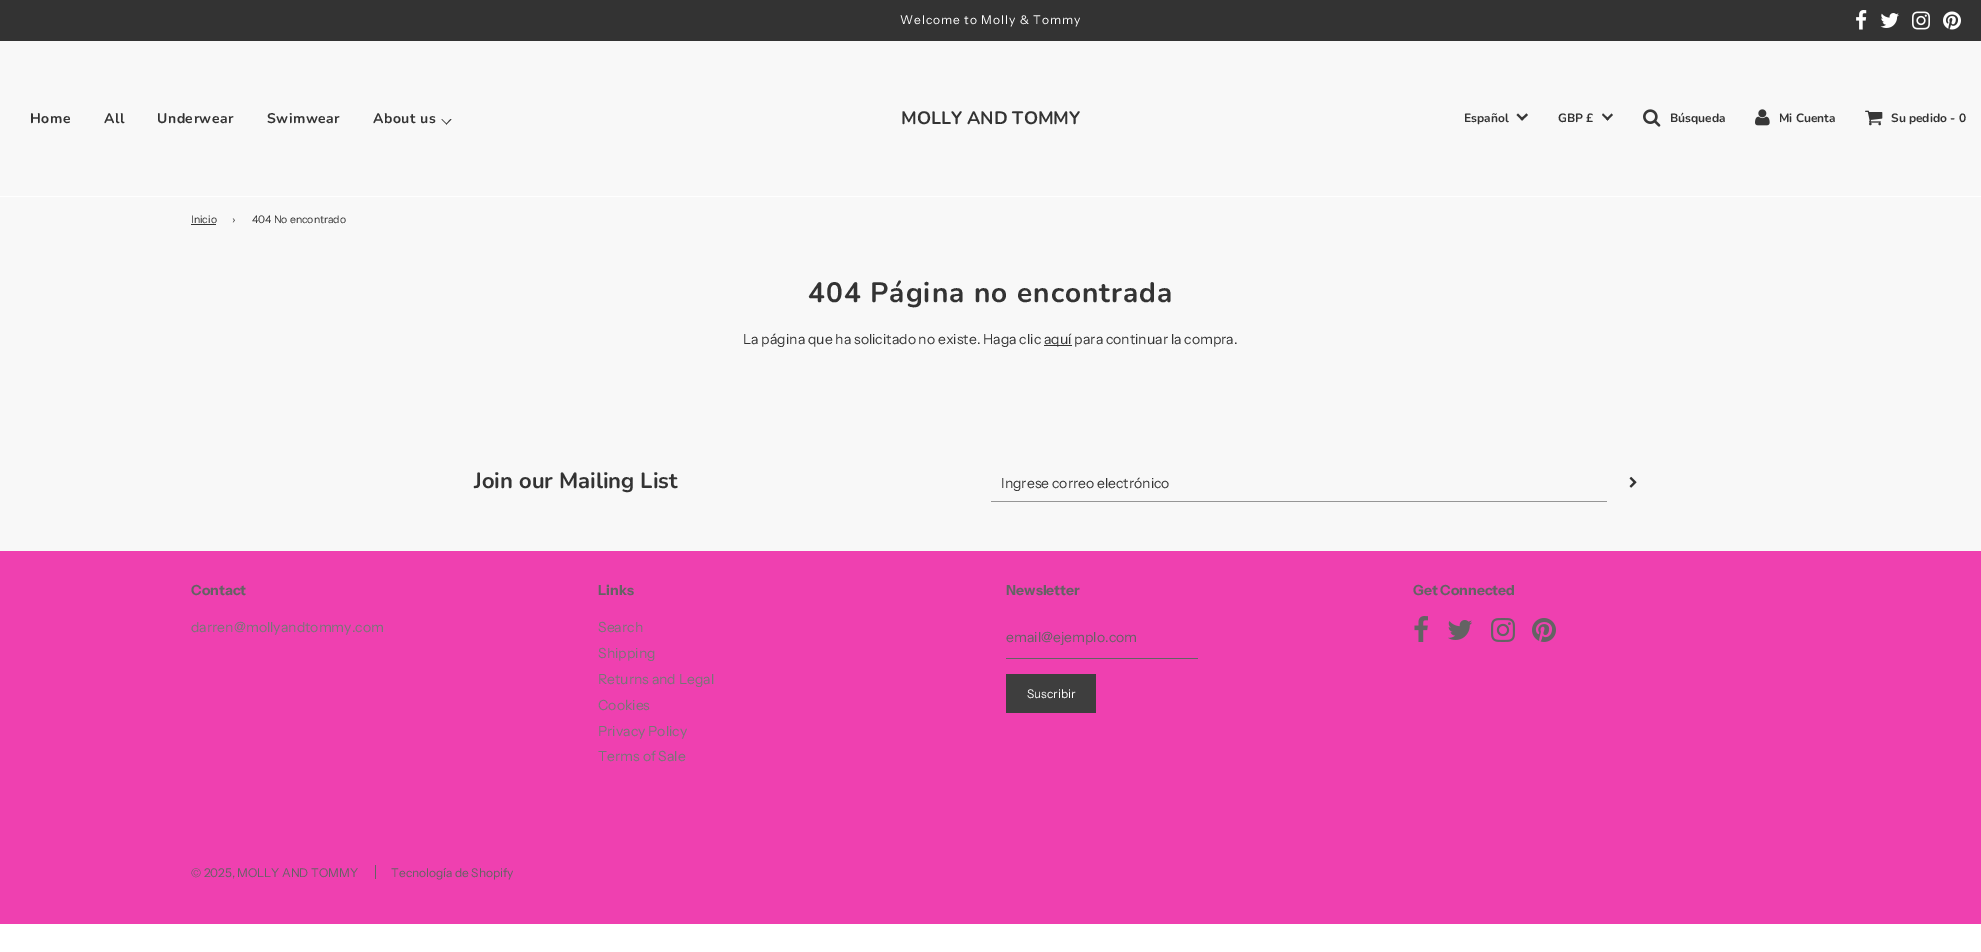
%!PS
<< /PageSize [1981 952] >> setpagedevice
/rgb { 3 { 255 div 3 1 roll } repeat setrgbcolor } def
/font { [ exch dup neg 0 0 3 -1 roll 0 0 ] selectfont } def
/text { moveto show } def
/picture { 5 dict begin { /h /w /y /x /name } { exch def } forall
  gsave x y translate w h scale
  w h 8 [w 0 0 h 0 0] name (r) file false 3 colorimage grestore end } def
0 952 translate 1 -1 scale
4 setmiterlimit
255 255 255 rgb
0 0 1981 952 rectfill
248 248 248 rgb
0 41 1981 510 rectfill
51 51 51 rgb
0 0 1981 41 rectfill
(img_01.rgb) 1856 10 11 20 picture
(img_02.rgb) 1880 13 19 15 picture
(img_03.rgb) 1912 11 18 19 picture
(img_04.rgb) 1943 11 18 19 picture
255 255 255 rgb
0 196 1981 1 rectfill
55 55 55 rgb
450.5 119 moveto 1 0.5 rlineto -5 5 rlineto -0.5 -0.5 rlineto closepath fill
442 119 moveto 5 5 rlineto -0.5 0.5 rlineto -5 -5 rlineto closepath fill
1526.5 113.5 moveto 1.5 1.5 rlineto -6 5.5 rlineto -1.5 -1.5 rlineto closepath fill
1518 113.5 moveto 5.5 5.5 rlineto -1.5 1.5 rlineto -5.5 -5.5 rlineto closepath fill
1611.5 113.5 moveto 1.5 1.5 rlineto -5.5 5.5 rlineto -1.5 -1.5 rlineto closepath fill
1603 113.5 moveto 6 5.5 rlineto -1.5 1.5 rlineto -5.5 -5.5 rlineto closepath fill
(img_05.rgb) 1643 109 18 18 picture
(img_06.rgb) 1755 109 15 17 picture
(img_07.rgb) 1865 110 18 16 picture
51 51 51 rgb
191 224 25 1 rectfill
1044 345 28 1 rectfill
150 150 150 rgb
991 501 616 1 rectfill
(img_08.rgb) 1629 476 8 12 picture
239 64 176 rgb
0 551 1981 373 rectfill
99 99 99 rgb
1006 658 192 1 rectfill
62 62 62 rgb
1006 674 90 39 rectfill
(img_09.rgb) 1414 616 14 26 picture
(img_10.rgb) 1448 620 25 20 picture
(img_11.rgb) 1491 618 24 24 picture
(img_12.rgb) 1532 618 24 24 picture
99 99 99 rgb
375 865 1 14 rectfill
/InstrumentSans-Regular 12 font
255 255 255 rgb
900 24 moveto 1 0 (Welcome to Molly & Tommy) ashow
/Nunito-Bold 14 font
51 51 51 rgb
30 123 moveto 0.5 0 (Home) ashow
104 123 moveto 0.5 0 (All) ashow
157 123 moveto 0.5 0 (Underwear) ashow
267 123 moveto 0.5 0 (Swimwear) ashow
373 123 moveto 0.5 0 (About us) ashow
/Nunito-Bold 18 font
(MOLLY AND TOMMY) 901 124 text
/Nunito-Bold 12 font
(Español) 1464 122 text
(GBP £) 1558 122 text
(Búsqueda) 1670 122 text
(Mi Cuenta) 1779 122 text
(Su pedido - 0) 1891 122 text
/InstrumentSans-Regular 10.5 font
(Inicio) 191 223 text
(›) 232 223 text
(404 No encontrado) 252 223 text
/Nunito-Bold 28 font
808 302 moveto 1 0 (404 Página no encontrada) ashow
/InstrumentSans-Regular 14 font
(La página que ha solicitado no existe. Haga clic) 743 344 text
(aquí para continuar la compra.) 1044 344 text
/Nunito-Bold 22 font
(Join our Mailing List) 474 488 text
/InstrumentSans-Regular 14 font
(Ingrese correo electrónico) 1001 488 text
/InstrumentSans-Bold 14 font
99 99 99 rgb
(Contact) 191 595 text
/InstrumentSans-Regular 14 font
118 118 118 rgb
(darren@mollyandtommy.com) 191 632 text
/InstrumentSans-Bold 14 font
99 99 99 rgb
(Links) 598 595 text
/InstrumentSans-Regular 14 font
118 118 118 rgb
(Search) 598 632 text
(Shipping) 598 658 text
(Returns and Legal) 598 684 text
(Cookies) 598 710 text
(Privacy Policy) 598 736 text
(Terms of Sale) 598 761 text
/InstrumentSans-Bold 14 font
99 99 99 rgb
(Newsletter) 1006 595 text
/InstrumentSans-Regular 14 font
(email@ejemplo.com) 1006 642 text
/InstrumentSans-Regular 12 font
255 255 255 rgb
(Suscribir) 1027 698 text
/InstrumentSans-Bold 14 font
99 99 99 rgb
(Get Connected) 1413 595 text
/InstrumentSans-Regular 12 font
(© 2025, MOLLY AND TOMMY) 191 877 text
(Tecnología de Shopify) 391 877 text
showpage
